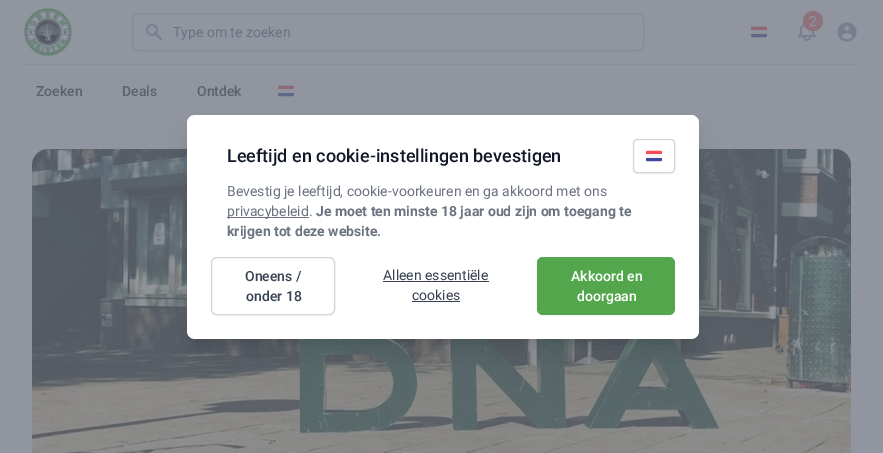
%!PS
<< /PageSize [883 453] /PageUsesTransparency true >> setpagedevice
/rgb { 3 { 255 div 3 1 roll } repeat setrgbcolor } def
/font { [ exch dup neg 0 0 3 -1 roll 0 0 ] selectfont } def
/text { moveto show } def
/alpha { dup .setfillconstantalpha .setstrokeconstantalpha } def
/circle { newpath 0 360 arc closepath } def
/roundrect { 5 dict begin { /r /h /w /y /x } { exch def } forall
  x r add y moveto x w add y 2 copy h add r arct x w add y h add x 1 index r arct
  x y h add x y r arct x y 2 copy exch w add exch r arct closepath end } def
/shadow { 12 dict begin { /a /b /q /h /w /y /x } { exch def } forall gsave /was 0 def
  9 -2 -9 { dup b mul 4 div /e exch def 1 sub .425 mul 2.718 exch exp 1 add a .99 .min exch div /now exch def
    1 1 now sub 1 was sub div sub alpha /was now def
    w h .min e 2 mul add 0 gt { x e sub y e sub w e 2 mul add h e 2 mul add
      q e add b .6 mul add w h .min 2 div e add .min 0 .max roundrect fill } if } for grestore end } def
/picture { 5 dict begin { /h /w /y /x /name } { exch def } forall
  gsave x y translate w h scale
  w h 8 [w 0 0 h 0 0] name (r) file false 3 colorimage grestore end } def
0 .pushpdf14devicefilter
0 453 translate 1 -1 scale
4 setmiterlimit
144 149 160 rgb
0 0 883 453 rectfill
(img_01.rgb) 798 23 18 18 picture
142 114 124 rgb
813 21 10 circle fill
(img_02.rgb) 751 26 16 12 picture
(img_03.rgb) 837 22 20 20 picture
(img_04.rgb) 24 8 48 48 picture
133 139 151 rgb
132.5 13.5 511 37 5.5 roundrect stroke
(img_05.rgb) 146 24 16 16 picture
138 143 155 rgb
24 64 835 1 rectfill
(img_02.rgb) 278 85 16 12 picture
32 149 819 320 16 roundrect fill
(img_07.rgb) 32 149 819 304 picture
0 0 0 rgb
193 129 500 212 2 5 0.1 shadow
192 140 502 214 3 12.5 0.1 shadow
255 255 255 rgb
187 115 512 224 8 roundrect fill
0 0 0 rgb
633 140 42 34 4 1 0.05 shadow
255 255 255 rgb
633.5 139.5 41 33 3.5 roundrect gsave fill grestore
209 213 219 rgb
stroke
(img_06.rgb) 646 150 16 12 picture
107 114 128 rgb
227 217 82 1 rectfill
0 0 0 rgb
211 258 124 58 6 1 0.05 shadow
255 255 255 rgb
211.5 257.5 123 57 5.5 roundrect gsave fill grestore
209 213 219 rgb
stroke
55 65 81 rgb
383 281 106 1 rectfill
412 301 48 1 rectfill
0 0 0 rgb
537 258 138 58 6 1 0.05 shadow
83 166 76 rgb
537 257 138 58 6 roundrect fill
/Roboto-Regular 14 font
144 149 160 rgb
(2) 809 26 text
107 114 128 rgb
(Type om te zoeken) 173 37 text
/Roboto-Medium 14 font
92 97 108 rgb
(Zoeken) 36 96 text
(Deals) 122 96 text
(Ontdek) 197 96 text
/Roboto-Medium 18 font
17 24 39 rgb
(Leeftijd en cookie-instellingen bevestigen) 227 162 text
/Roboto-Regular 14 font
107 114 128 rgb
(Bevestig je leeftijd, cookie-voorkeuren en ga akkoord met ons) 227 196 text
(privacybeleid.) 227 216 text
/Roboto-Bold 14 font
(Je moet ten minste 18 jaar oud zijn om toegang te) 316 216 text
(krijgen tot deze website.) 227 236 text
/Roboto-Medium 14 font
55 65 81 rgb
(Oneens /) 245 281 text
(onder 18) 246 301 text
/Roboto-Regular 14 font
(Alleen essentiële) 383 280 text
(cookies) 412 300 text
/Roboto-Medium 14 font
255 255 255 rgb
(Akkoord en) 571 281 text
(doorgaan) 577 301 text
.poppdf14devicefilter showpage
